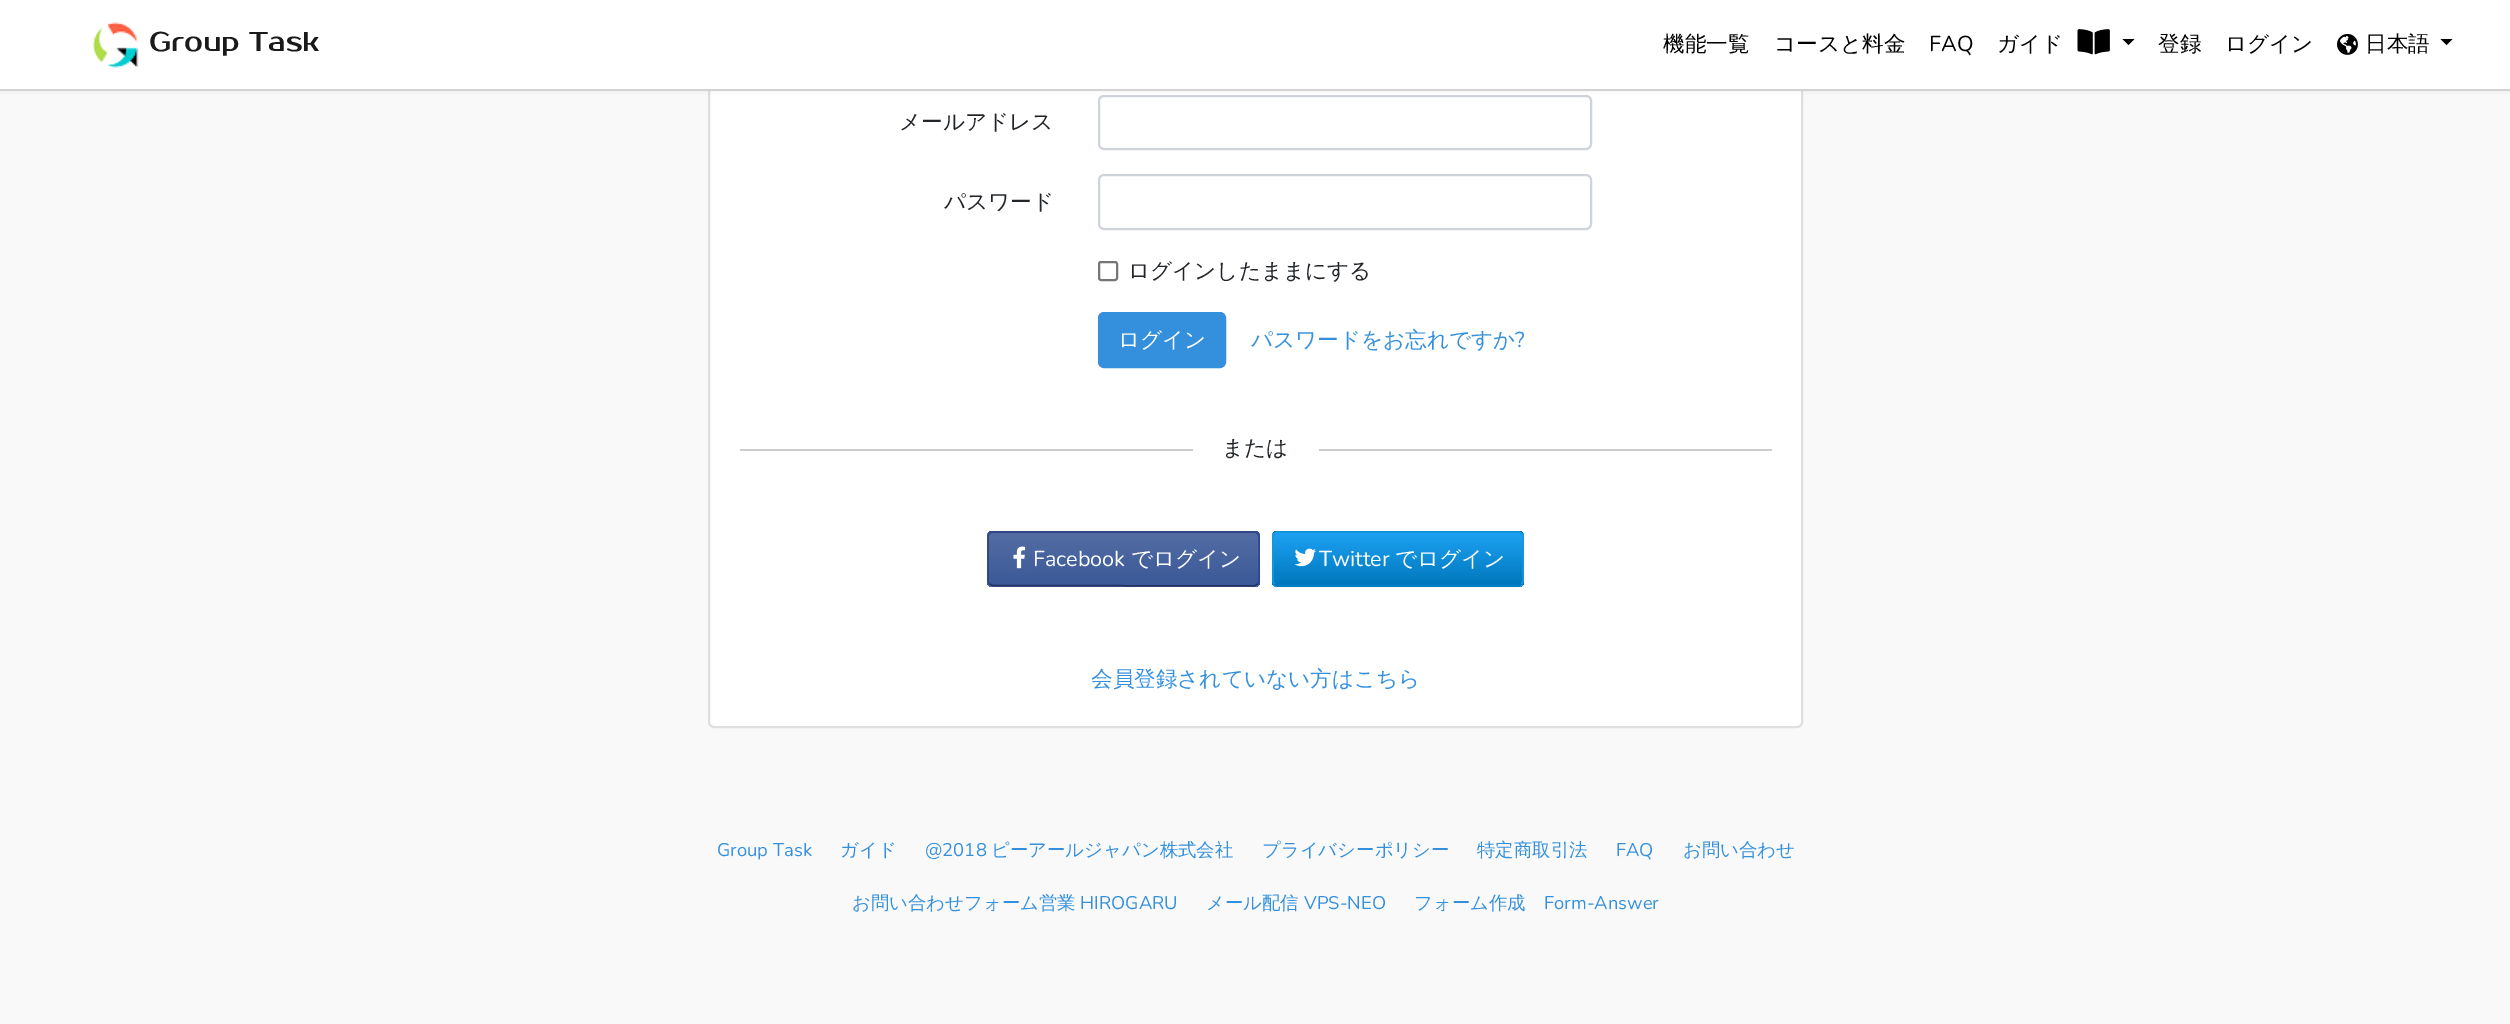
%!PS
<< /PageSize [2510 1024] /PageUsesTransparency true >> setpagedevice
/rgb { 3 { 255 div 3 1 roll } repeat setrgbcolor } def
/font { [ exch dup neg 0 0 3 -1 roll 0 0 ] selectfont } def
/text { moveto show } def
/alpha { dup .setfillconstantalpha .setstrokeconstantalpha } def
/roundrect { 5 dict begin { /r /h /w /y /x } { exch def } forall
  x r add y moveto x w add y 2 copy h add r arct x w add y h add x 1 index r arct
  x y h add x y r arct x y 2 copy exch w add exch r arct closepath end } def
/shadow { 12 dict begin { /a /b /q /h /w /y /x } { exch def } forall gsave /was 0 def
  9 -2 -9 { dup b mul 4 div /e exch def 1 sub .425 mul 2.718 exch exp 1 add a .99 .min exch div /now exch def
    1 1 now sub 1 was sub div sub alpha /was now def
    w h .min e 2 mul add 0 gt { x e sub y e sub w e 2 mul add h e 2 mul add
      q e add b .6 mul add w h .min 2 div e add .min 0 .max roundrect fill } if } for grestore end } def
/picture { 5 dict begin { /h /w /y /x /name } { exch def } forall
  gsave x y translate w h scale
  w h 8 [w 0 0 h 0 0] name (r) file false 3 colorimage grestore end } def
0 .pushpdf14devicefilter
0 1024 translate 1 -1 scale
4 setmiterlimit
249 249 249 rgb
0 0 2510 1024 rectfill
255 255 255 rgb
709 -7 1093 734 5 roundrect gsave fill grestore
223 223 223 rgb
2 setlinewidth
stroke
206 212 218 rgb
1099 96 492 53 5 roundrect stroke
0 0 0 rgb
0 3 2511 90 0 3 0.04 shadow
255 255 255 rgb
0 0 2510 89 rectfill
211 211 211 rgb
0 89 2510 2 rectfill
(img_01.rgb) 92 22 47 46 picture
(img_02.rgb) 2077 29 33 26 picture
0 0 0 rgb
2122.5 39 moveto 12 0 rlineto -6 6 rlineto closepath fill
(img_03.rgb) 2337 33 21 22 picture
2440.5 39 moveto 12 0 rlineto -6 6 rlineto closepath fill
206 212 218 rgb
1099 175 492 54 5 roundrect stroke
118 118 118 rgb
1099 262 18 18 2 roundrect stroke
52 144 220 rgb
1099 313 126 54 5 roundrect gsave fill grestore
stroke
204 204 204 rgb
740 449 1032 2 rectfill
255 255 255 rgb
1193 449 126 2 rectfill
gsave
987 531 273 56 6 roundrect clip newpath
gsave 987 531 moveto 273 0 rlineto 0 2 rlineto -273 0 rlineto closepath clip newpath
<< /ShadingType 2 /ColorSpace /DeviceRGB /Coords [1124 480 1124 533] /Extend [true true] /Function << /FunctionType 2 /Domain [0 1] /C0 [0.325 0.427 0.643] /C1 [0.231 0.349 0.596] /N 1 >> >> shfill grestore
gsave 987 533 moveto 273 0 rlineto 0 52 rlineto -273 0 rlineto closepath clip newpath
<< /ShadingType 2 /ColorSpace /DeviceRGB /Coords [1124 533 1124 585] /Extend [true true] /Function << /FunctionType 2 /Domain [0 1] /C0 [0.325 0.427 0.643] /C1 [0.231 0.349 0.596] /N 1 >> >> shfill grestore
gsave 987 585 moveto 273 0 rlineto 0 2 rlineto -273 0 rlineto closepath clip newpath
<< /ShadingType 2 /ColorSpace /DeviceRGB /Coords [1124 585 1124 638] /Extend [true true] /Function << /FunctionType 2 /Domain [0 1] /C0 [0.325 0.427 0.643] /C1 [0.231 0.349 0.596] /N 1 >> >> shfill grestore
grestore
34 50 98 rgb
1.5 setlinewidth
1257.5 584 moveto -1 1 -2 1.5 -3.5 2 rcurveto -261.5 -0.5 rlineto -3 -1.5 rlineto stroke
47 69 136 rgb
989.5 584 moveto -1 -1 -1.5 -2 -1.5 -3.5 rcurveto 0 -43.5 rlineto 0 -1.5 0.5 -2.5 1.5 -3.5 rcurveto 1 -1 2 -1.5 3.5 -1.5 rcurveto 261 0 rlineto 1.5 0 2.5 0.5 3.5 1.5 rcurveto 1 1 1.5 2 1.5 3.5 rcurveto 0 43.5 rlineto 0 1.5 -0.5 2.5 -1.5 3.5 rcurveto stroke
(img_04.rgb) 1013 546 13 23 picture
gsave
1272 531 252 56 6 roundrect clip newpath
gsave 1272 531 moveto 252 0 rlineto 0 2 rlineto -252 0 rlineto closepath clip newpath
<< /ShadingType 2 /ColorSpace /DeviceRGB /Coords [1398 480 1398 533] /Extend [true true] /Function << /FunctionType 2 /Domain [0 1] /C0 [0.114 0.631 0.949] /C1 [0 0.471 0.741] /N 1 >> >> shfill grestore
gsave 1272 533 moveto 252 0 rlineto 0 52 rlineto -252 0 rlineto closepath clip newpath
<< /ShadingType 2 /ColorSpace /DeviceRGB /Coords [1398 533 1398 585] /Extend [true true] /Function << /FunctionType 2 /Domain [0 1] /C0 [0.114 0.631 0.949] /C1 [0 0.471 0.741] /N 1 >> >> shfill grestore
gsave 1272 585 moveto 252 0 rlineto 0 2 rlineto -252 0 rlineto closepath clip newpath
<< /ShadingType 2 /ColorSpace /DeviceRGB /Coords [1398 585 1398 638] /Extend [true true] /Function << /FunctionType 2 /Domain [0 1] /C0 [0.114 0.631 0.949] /C1 [0 0.471 0.741] /N 1 >> >> shfill grestore
grestore
0 120 189 rgb
1521.5 584 moveto -1 1 -2 2 -3.5 2 rcurveto -240 0 rlineto -1.5 0 -2.5 -1 -3.5 -2 rcurveto stroke
19 151 216 rgb
1274.5 584 moveto -1 -1 -1.5 -2 -1.5 -3.5 rcurveto 0 -43.5 rlineto 0 -1.5 0.5 -2.5 1.5 -3.5 rcurveto 1 -1 2 -1.5 3.5 -1.5 rcurveto 240 0 rlineto 1.5 0 2.5 0.5 3.5 1.5 rcurveto 1 1 1.5 2 1.5 3.5 rcurveto 0 43.5 rlineto 0 1.5 -0.5 2.5 -1.5 3.5 rcurveto stroke
(img_05.rgb) 1294 548 22 19 picture
/ProstoOne-Regular 27 font
26 26 26 rgb
(Group Task) 149 51 text
/WenQuanYiZenHei-Medium 21.6 font
0 0 0 rgb
(機能一覧) 1663 51 text
(コースと料金) 1774 51 text
/Nunito-ExtraLight 21.6 font
(FAQ) 1929 51 text
/WenQuanYiZenHei-Medium 21.6 font
(ガイド) 1997 51 text
(登録) 2158 51 text
(ログイン) 2225 51 text
(日本語) 2365 51 text
33 37 41 rgb
(メールアドレス) 899 129 text
(パスワード) 944 209 text
(ログインしたままにする) 1128 278 text
255 255 255 rgb
(ログイン) 1118 347 text
52 144 220 rgb
(パスワードをお忘れですか) 1251 347 text
/Nunito-ExtraLight 21.6 font
(?) 1515 347 text
/WenQuanYiZenHei-Medium 21.6 font
33 37 41 rgb
(または) 1222 455 text
/Nunito-ExtraLight 21.6 font
255 255 255 rgb
(Facebook) 1033 566 text
/WenQuanYiZenHei-Medium 21.6 font
(でログイン) 1131 566 text
/Nunito-ExtraLight 21.6 font
(Twitter) 1319 566 text
/WenQuanYiZenHei-Medium 21.6 font
(でログイン) 1395 566 text
52 144 220 rgb
(会員登録されていない方はこちら) 1091 686 text
/Nunito-ExtraLight 18.4 font
(Group Task) 717 856 text
/WenQuanYiZenHei-Medium 18.4 font
(ガイド) 840 856 text
/Nunito-ExtraLight 18.4 font
(@2018) 925 856 text
/WenQuanYiZenHei-Medium 18.4 font
(ピーアールジャパン株式会社) 991 856 text
(プライバシーポリシー) 1262 856 text
(特定商取引法) 1477 856 text
/Nunito-ExtraLight 18.4 font
(FAQ) 1616 856 text
/WenQuanYiZenHei-Medium 18.4 font
(お問い合わせ) 1683 856 text
(お問い合わせフォーム営業) 852 909 text
/Nunito-ExtraLight 18.4 font
(HIROGARU) 1080 909 text
/WenQuanYiZenHei-Medium 18.4 font
(メール配信) 1206 909 text
/Nunito-ExtraLight 18.4 font
(VPS-NEO) 1304 909 text
/WenQuanYiZenHei-Medium 18.4 font
(フォーム作成) 1414 909 text
/Nunito-ExtraLight 18.4 font
(Form-Answer) 1544 909 text
.poppdf14devicefilter showpage
